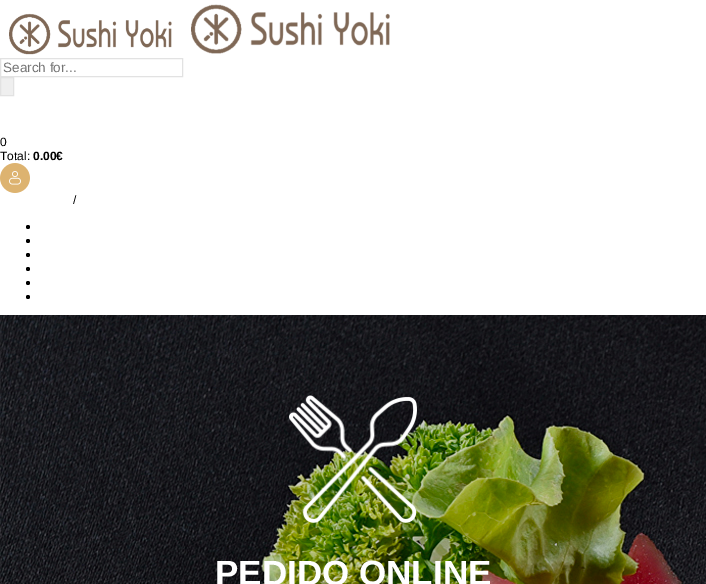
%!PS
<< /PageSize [706 584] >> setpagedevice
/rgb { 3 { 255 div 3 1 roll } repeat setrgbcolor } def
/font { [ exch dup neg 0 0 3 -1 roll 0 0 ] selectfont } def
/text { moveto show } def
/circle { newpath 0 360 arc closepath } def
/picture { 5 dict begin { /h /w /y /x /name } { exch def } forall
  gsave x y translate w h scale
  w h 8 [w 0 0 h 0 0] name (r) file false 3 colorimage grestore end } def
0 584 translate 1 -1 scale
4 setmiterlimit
255 255 255 rgb
0 0 706 584 rectfill
(img_01.rgb) 9 13 163 42 picture
(img_02.rgb) 191 4 199 50 picture
226 226 226 rgb
0.5 58.5 182 18 rectstroke
239 239 239 rgb
0.5 77.5 moveto 13 0 rlineto 0 18 rlineto -13 0 rlineto closepath gsave fill grestore
226 226 226 rgb
stroke
(img_03.rgb) 0 163 30 30 picture
0 0 0 rgb
28 227 2 circle fill
28 241 2 circle fill
28 255 2 circle fill
28 269 2 circle fill
28 283 2 circle fill
28 297 2 circle fill
(img_04.rgb) 0 315 706 269 picture
(img_05.rgb) 289 395 128 128 picture
/LiberationSans-Regular 13.5 font
117 117 117 rgb
(Search for...) 3 72 text
/LiberationSans-Regular 12 font
0 0 0 rgb
(0) 0 146 text
(Total:) 0 160 text
/LiberationSans-Bold 12 font
(0.00€) 33 160 text
/LiberationSans-Regular 12 font
(/) 73 204 text
/LiberationSans-Bold 35 font
255 255 255 rgb
(PEDIDO ONLINE) 215 585 text
showpage
